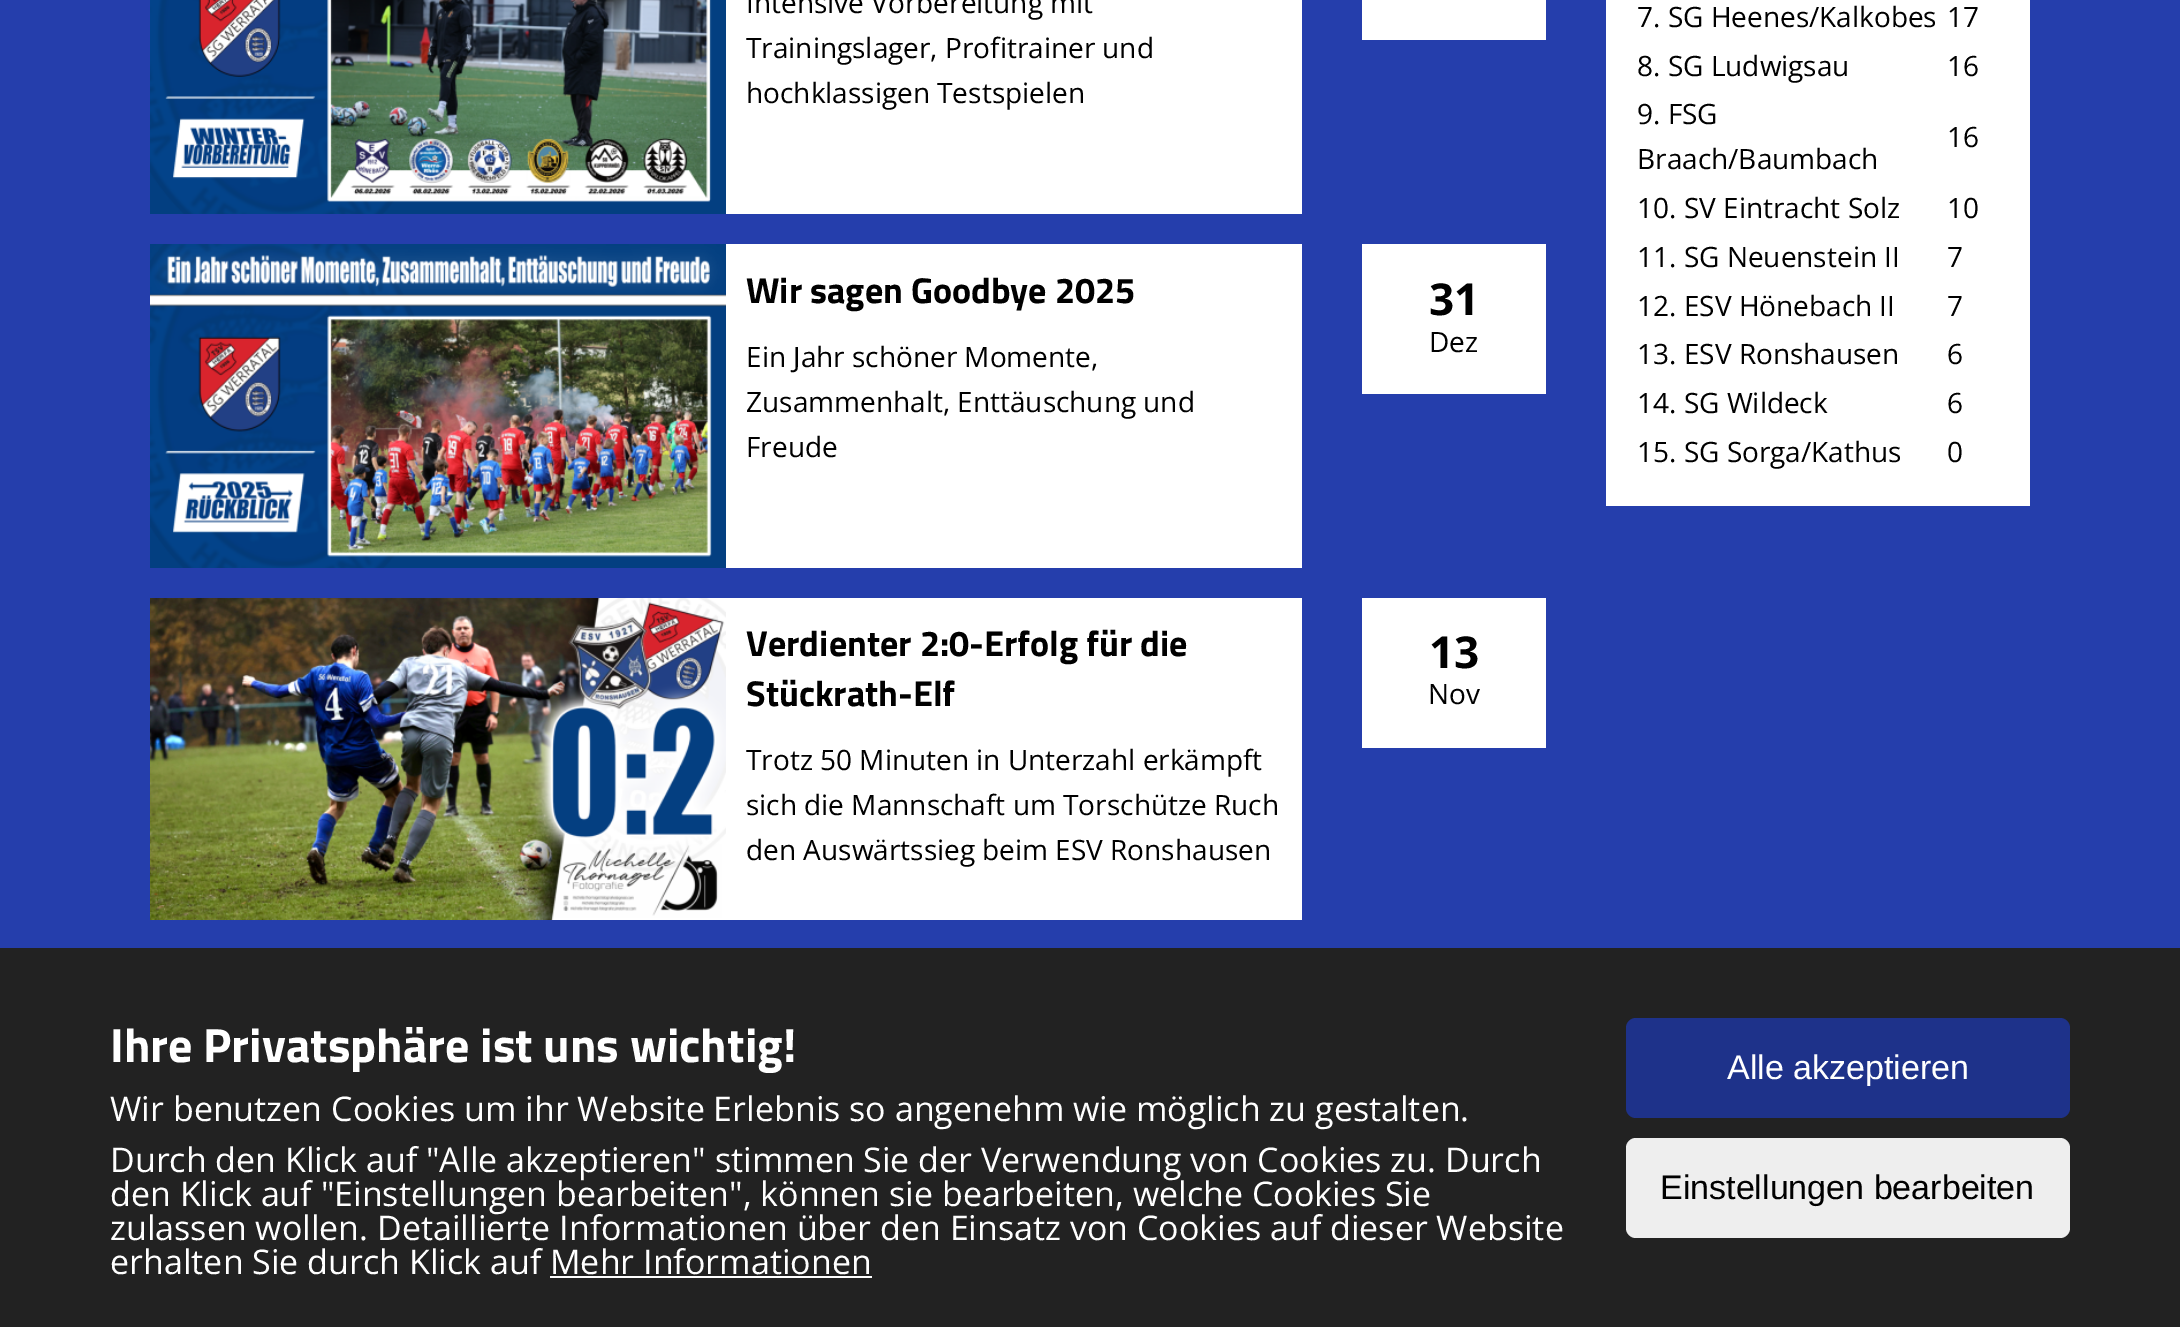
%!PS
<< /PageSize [2180 1327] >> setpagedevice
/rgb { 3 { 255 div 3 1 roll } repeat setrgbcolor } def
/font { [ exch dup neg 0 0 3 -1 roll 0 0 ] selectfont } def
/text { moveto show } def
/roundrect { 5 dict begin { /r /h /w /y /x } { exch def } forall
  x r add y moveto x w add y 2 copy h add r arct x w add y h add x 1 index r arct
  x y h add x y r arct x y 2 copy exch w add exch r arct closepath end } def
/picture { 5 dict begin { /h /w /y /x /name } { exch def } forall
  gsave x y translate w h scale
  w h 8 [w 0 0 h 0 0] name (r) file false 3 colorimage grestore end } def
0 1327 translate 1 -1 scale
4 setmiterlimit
37 62 172 rgb
0 0 2180 1327 rectfill
255 255 255 rgb
726 0 576 214 rectfill
(img_01.rgb) 150 0 576 214 picture
1362 0 184 40 rectfill
726 244 576 324 rectfill
(img_02.rgb) 150 244 576 324 picture
1362 244 184 150 rectfill
726 598 576 322 rectfill
(img_03.rgb) 150 598 576 322 picture
1362 598 184 150 rectfill
1606 0 424 506 rectfill
34 34 34 rgb
0 948 2180 379 rectfill
255 255 255 rgb
550 1276 322 2 rectfill
30 50 138 rgb
1626 1018 444 100 10 roundrect fill
238 238 238 rgb
1626 1138 444 100 10 roundrect fill
/OpenSans-Regular 28 font
0 0 0 rgb
(Intensive Vorbereitung mit) 746 13 text
(Trainingslager, Profitrainer und) 746 58 text
(hochklassigen Testspielen) 746 103 text
/TitilliumWeb-Bold 36 font
(Wir sagen Goodbye 2025) 746 303 text
/OpenSans-Regular 28 font
(Ein Jahr schöner Momente,) 746 367 text
(Zusammenhalt, Enttäuschung und) 746 412 text
(Freude) 746 457 text
/OpenSans-Bold 44 font
(31) 1429 315 text
/OpenSans-Regular 28 font
(Dez) 1429 352 text
/TitilliumWeb-Bold 36 font
(Verdienter 2:0-Erfolg für die) 746 656 text
(Stückrath-Elf) 746 706 text
/OpenSans-Regular 28 font
(Trotz 50 Minuten in Unterzahl erkämpft) 746 770 text
(sich die Mannschaft um Torschütze Ruch) 746 815 text
(den Auswärtssieg beim ESV Ronshausen) 746 860 text
/OpenSans-Bold 44 font
(13) 1429 668 text
/OpenSans-Regular 28 font
(Nov) 1428 704 text
(7. SG Heenes/Kalkobes) 1637 27 text
(17) 1947 27 text
(8. SG Ludwigsau) 1637 76 text
(16) 1947 76 text
(9. FSG) 1637 124 text
(Braach/Baumbach) 1637 169 text
(16) 1947 147 text
(10. SV Eintracht Solz) 1637 218 text
(10) 1947 218 text
(11. SG Neuenstein II) 1637 267 text
(7) 1947 267 text
(12. ESV Hönebach II) 1637 316 text
(7) 1947 316 text
(13. ESV Ronshausen) 1637 364 text
(6) 1947 364 text
(14. SG Wildeck) 1637 413 text
(6) 1947 413 text
(15. SG Sorga/Kathus) 1637 462 text
(0) 1947 462 text
/TitilliumWeb-Bold 48 font
255 255 255 rgb
(Ihre Privatsphäre ist uns wichtig!) 110 1062 text
/OpenSans-Regular 34 font
(Wir benutzen Cookies um ihr Website Erlebnis so angenehm wie möglich zu gestalten.) 110 1121 text
(Durch den Klick auf "Alle akzeptieren" stimmen Sie der Verwendung von Cookies zu. Durch) 110 1172 text
(den Klick auf "Einstellungen bearbeiten", können sie bearbeiten, welche Cookies Sie) 110 1206 text
(zulassen wollen. Detaillierte Informationen über den Einsatz von Cookies auf dieser Website) 110 1240 text
(erhalten Sie durch Klick auf Mehr Informationen) 110 1274 text
/LiberationSans-Regular 34 font
(Alle akzeptieren) 1727 1079 text
0 0 0 rgb
(Einstellungen bearbeiten) 1660 1199 text
showpage
